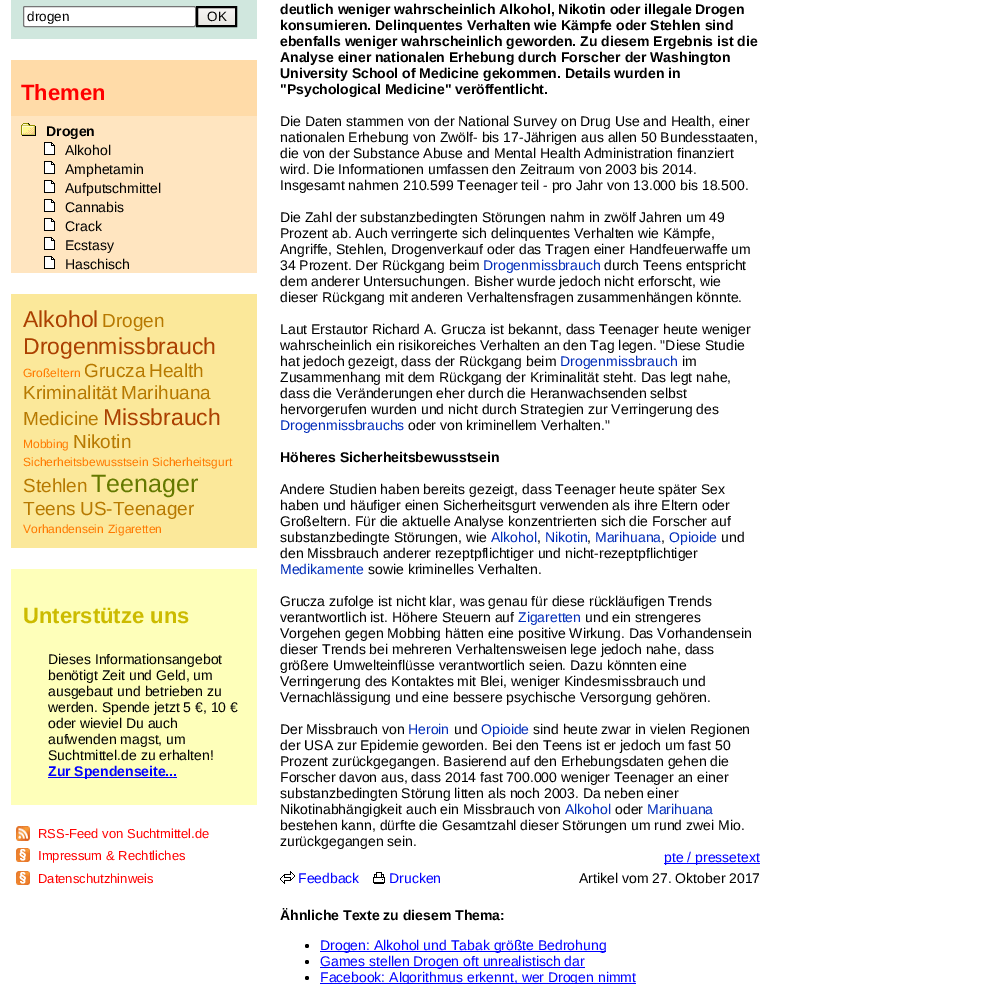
%!PS
<< /PageSize [996 984] >> setpagedevice
/rgb { 3 { 255 div 3 1 roll } repeat setrgbcolor } def
/font { [ exch dup neg 0 0 3 -1 roll 0 0 ] selectfont } def
/text { moveto show } def
/circle { newpath 0 360 arc closepath } def
/roundrect { 5 dict begin { /r /h /w /y /x } { exch def } forall
  x r add y moveto x w add y 2 copy h add r arct x w add y h add x 1 index r arct
  x y h add x y r arct x y 2 copy exch w add exch r arct closepath end } def
/picture { 5 dict begin { /h /w /y /x /name } { exch def } forall
  gsave x y translate w h scale
  w h 8 [w 0 0 h 0 0] name (r) file false 3 colorimage grestore end } def
0 984 translate 1 -1 scale
4 setmiterlimit
255 255 255 rgb
0 0 996 984 rectfill
208 231 222 rgb
11 0 246 39 rectfill
255 255 255 rgb
23.5 6.5 172 20 1.5 roundrect gsave fill grestore
118 118 118 rgb
stroke
(img_01.rgb) 198 8 37 17 picture
0 0 0 rgb
2 setlinewidth
197 7 39 19 rectstroke
255 219 168 rgb
11 60 246 56 rectfill
255 229 192 rgb
11 116 246 157 rectfill
(img_02.rgb) 21 123 15 13 picture
(img_03.rgb) 44 142 11 13 picture
(img_03.rgb) 44 161 11 13 picture
(img_03.rgb) 44 180 11 13 picture
(img_03.rgb) 44 199 11 13 picture
(img_03.rgb) 44 218 11 13 picture
(img_03.rgb) 44 237 11 13 picture
(img_03.rgb) 44 256 11 13 picture
251 232 154 rgb
11 294 246 254 rectfill
254 255 186 rgb
11 569 246 236 rectfill
0 0 255 rgb
48 777 129 1 rectfill
(img_04.rgb) 16 826 14 15 picture
(img_05.rgb) 16 848 14 14 picture
(img_05.rgb) 16 871 14 14 picture
(img_06.rgb) 280 871 15 13 picture
(img_07.rgb) 373 872 12 12 picture
664 863 96 1 rectfill
0 0 0 rgb
307 946 2 circle fill
0 0 255 rgb
320 951 286 1 rectfill
0 0 0 rgb
307 962 2 circle fill
0 0 255 rgb
320 967 265 1 rectfill
0 0 0 rgb
307 978 2 circle fill
0 0 255 rgb
320 983 316 1 rectfill
/LiberationSans-Regular 13.5 font
0 0 0 rgb
(drogen) 27 21 text
(OK) 207 21 text
/LiberationSans-Bold 22 font
255 0 0 rgb
(Themen) 21 100 text
/LiberationSans-Bold 14 font
0 0 0 rgb
(Drogen) 46 136 text
/LiberationSans-Regular 14 font
(Alkohol) 65 155 text
(Amphetamin) 65 174 text
(Aufputschmittel) 65 193 text
(Cannabis) 65 212 text
(Crack) 65 231 text
(Ecstasy) 65 250 text
(Haschisch) 65 269 text
/LiberationSans-Regular 23 font
171 64 0 rgb
(Alkohol) 23 327 text
/LiberationSans-Regular 19 font
183 121 0 rgb
(Drogen) 102 327 text
/LiberationSans-Regular 23 font
171 64 0 rgb
(Drogenmissbrauch) 23 354 text
/LiberationSans-Regular 12 font
255 121 0 rgb
(Großeltern) 23 377 text
/LiberationSans-Regular 19 font
183 121 0 rgb
(Grucza) 84 377 text
(Health) 149 377 text
(Kriminalität) 23 399 text
(Marihuana) 121 399 text
(Medicine) 23 425 text
/LiberationSans-Regular 23 font
171 64 0 rgb
(Missbrauch) 103 425 text
/LiberationSans-Regular 12 font
255 121 0 rgb
(Mobbing) 23 448 text
/LiberationSans-Regular 19 font
183 121 0 rgb
(Nikotin) 73 448 text
/LiberationSans-Regular 12 font
255 121 0 rgb
(Sicherheitsbewusstsein) 23 466 text
(Sicherheitsgurt) 152 466 text
/LiberationSans-Regular 19 font
183 121 0 rgb
(Stehlen) 23 492 text
/LiberationSans-Regular 25 font
100 121 0 rgb
(Teenager) 91 492 text
/LiberationSans-Regular 19 font
183 121 0 rgb
(Teens) 23 515 text
(US-Teenager) 80 515 text
/LiberationSans-Regular 12 font
255 121 0 rgb
(Vorhandensein) 23 533 text
(Zigaretten) 108 533 text
/LiberationSans-Bold 22 font
204 187 0 rgb
(Unterstütze uns) 23 623 text
/LiberationSans-Regular 14 font
0 0 0 rgb
(Dieses Informationsangebot) 48 664 text
(benötigt Zeit und Geld, um) 48 680 text
(ausgebaut und betrieben zu) 48 696 text
(werden. Spende jetzt 5 €, 10 €) 48 712 text
(oder wieviel Du auch) 48 728 text
(aufwenden magst, um) 48 744 text
(Suchtmittel.de zu erhalten!) 48 760 text
/LiberationSans-Bold 14 font
0 0 255 rgb
(Zur Spendenseite...) 48 776 text
/LiberationSans-Regular 13 font
255 0 0 rgb
(RSS-Feed von Suchtmittel.de) 38 838 text
(Impressum & Rechtliches) 38 860 text
(Datenschutzhinweis) 38 883 text
/LiberationSans-Bold 14 font
0 0 0 rgb
(deutlich weniger wahrscheinlich Alkohol, Nikotin oder illegale Drogen) 280 14 text
(konsumieren. Delinquentes Verhalten wie Kämpfe oder Stehlen sind) 280 30 text
(ebenfalls weniger wahrscheinlich geworden. Zu diesem Ergebnis ist die) 280 46 text
(Analyse einer nationalen Erhebung durch Forscher der Washington) 280 62 text
(University School of Medicine gekommen. Details wurden in) 280 78 text
("Psychological Medicine" veröffentlicht.) 280 94 text
/LiberationSans-Regular 14 font
(Die Daten stammen von der National Survey on Drug Use and Health, einer) 280 126 text
(nationalen Erhebung von Zwölf- bis 17-Jährigen aus allen 50 Bundesstaaten,) 280 142 text
(die von der Substance Abuse and Mental Health Administration finanziert) 280 158 text
(wird. Die Informationen umfassen den Zeitraum von 2003 bis 2014.) 280 174 text
(Insgesamt nahmen 210.599 Teenager teil - pro Jahr von 13.000 bis 18.500.) 280 190 text
(Die Zahl der substanzbedingten Störungen nahm in zwölf Jahren um 49) 280 222 text
(Prozent ab. Auch verringerte sich delinquentes Verhalten wie Kämpfe,) 280 238 text
(Angriffe, Stehlen, Drogenverkauf oder das Tragen einer Handfeuerwaffe um) 280 254 text
(34 Prozent. Der Rückgang beim) 280 270 text
0 43 184 rgb
(Drogenmissbrauch) 483 270 text
0 0 0 rgb
(durch Teens entspricht) 604 270 text
(dem anderer Untersuchungen. Bisher wurde jedoch nicht erforscht, wie) 280 286 text
(dieser Rückgang mit anderen Verhaltensfragen zusammenhängen könnte.) 280 302 text
(Laut Erstautor Richard A. Grucza ist bekannt, dass Teenager heute weniger) 280 334 text
(wahrscheinlich ein risikoreiches Verhalten an den Tag legen. "Diese Studie) 280 350 text
(hat jedoch gezeigt, dass der Rückgang beim) 280 366 text
0 43 184 rgb
(Drogenmissbrauch) 560 366 text
0 0 0 rgb
(im) 682 366 text
(Zusammenhang mit dem Rückgang der Kriminalität steht. Das legt nahe,) 280 382 text
(dass die Veränderungen eher durch die Heranwachsenden selbst) 280 398 text
(hervorgerufen wurden und nicht durch Strategien zur Verringerung des) 280 414 text
0 43 184 rgb
(Drogenmissbrauchs) 280 430 text
0 0 0 rgb
(oder von kriminellem Verhalten.") 408 430 text
/LiberationSans-Bold 14 font
(Höheres Sicherheitsbewusstsein) 280 462 text
/LiberationSans-Regular 14 font
(Andere Studien haben bereits gezeigt, dass Teenager heute später Sex) 280 494 text
(haben und häufiger einen Sicherheitsgurt verwenden als ihre Eltern oder) 280 510 text
(Großeltern. Für die aktuelle Analyse konzentrierten sich die Forscher auf) 280 526 text
(substanzbedingte Störungen, wie) 280 542 text
0 43 184 rgb
(Alkohol) 491 542 text
0 0 0 rgb
(,) 537 542 text
0 43 184 rgb
(Nikotin) 545 542 text
0 0 0 rgb
(,) 587 542 text
0 43 184 rgb
(Marihuana) 595 542 text
0 0 0 rgb
(,) 661 542 text
0 43 184 rgb
(Opioide) 669 542 text
0 0 0 rgb
(und) 721 542 text
(den Missbrauch anderer rezeptpflichtiger und nicht-rezeptpflichtiger) 280 558 text
0 43 184 rgb
(Medikamente) 280 574 text
0 0 0 rgb
(sowie kriminelles Verhalten.) 368 574 text
(Grucza zufolge ist nicht klar, was genau für diese rückläufigen Trends) 280 606 text
(verantwortlich ist. Höhere Steuern auf) 280 622 text
0 43 184 rgb
(Zigaretten) 518 622 text
0 0 0 rgb
(und ein strengeres) 585 622 text
(Vorgehen gegen Mobbing hätten eine positive Wirkung. Das Vorhandensein) 280 638 text
(dieser Trends bei mehreren Verhaltensweisen lege jedoch nahe, dass) 280 654 text
(größere Umwelteinflüsse verantwortlich seien. Dazu könnten eine) 280 670 text
(Verringerung des Kontaktes mit Blei, weniger Kindesmissbrauch und) 280 686 text
(Vernachlässigung und eine bessere psychische Versorgung gehören.) 280 702 text
(Der Missbrauch von) 280 734 text
0 43 184 rgb
(Heroin) 408 734 text
0 0 0 rgb
(und) 454 734 text
0 43 184 rgb
(Opioide) 481 734 text
0 0 0 rgb
(sind heute zwar in vielen Regionen) 533 734 text
(der USA zur Epidemie geworden. Bei den Teens ist er jedoch um fast 50) 280 750 text
(Prozent zurückgegangen. Basierend auf den Erhebungsdaten gehen die) 280 766 text
(Forscher davon aus, dass 2014 fast 700.000 weniger Teenager an einer) 280 782 text
(substanzbedingten Störung litten als noch 2003. Da neben einer) 280 798 text
(Nikotinabhängigkeit auch ein Missbrauch von) 280 814 text
0 43 184 rgb
(Alkohol) 565 814 text
0 0 0 rgb
(oder) 615 814 text
0 43 184 rgb
(Marihuana) 647 814 text
0 0 0 rgb
(bestehen kann, dürfte die Gesamtzahl dieser Störungen um rund zwei Mio.) 280 830 text
(zurückgegangen sein.) 280 846 text
0 0 255 rgb
(Feedback) 298 883 text
(Drucken) 389 883 text
(pte / pressetext) 664 862 text
0 0 0 rgb
(Artikel vom 27. Oktober 2017) 579 883 text
/LiberationSans-Bold 14 font
(Ähnliche Texte zu diesem Thema:) 280 920 text
/LiberationSans-Regular 14 font
0 0 255 rgb
(Drogen: Alkohol und Tabak größte Bedrohung) 320 950 text
(Games stellen Drogen oft unrealistisch dar) 320 966 text
(Facebook: Algorithmus erkennt, wer Drogen nimmt) 320 982 text
showpage
